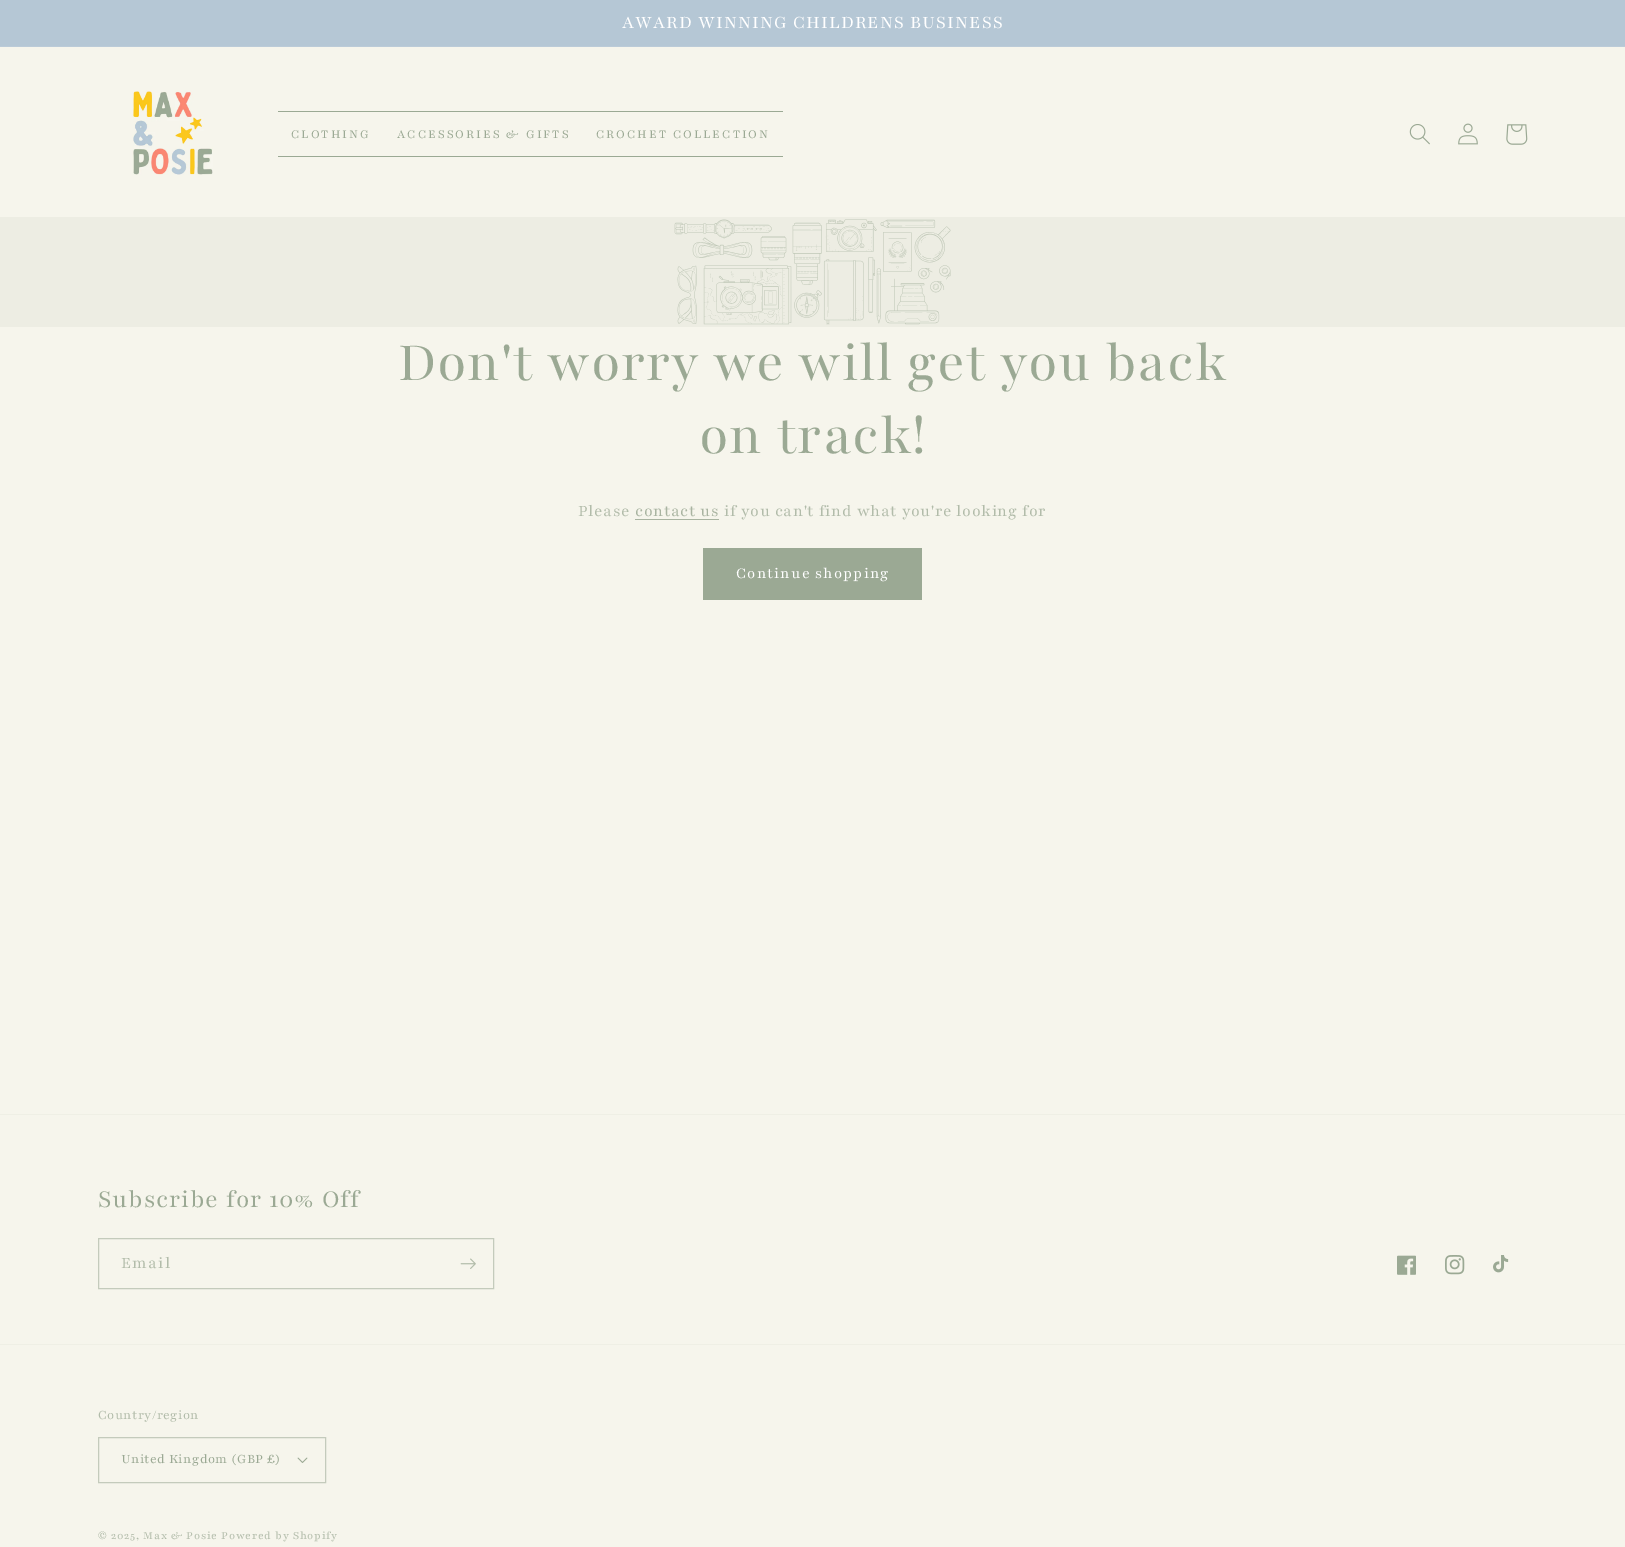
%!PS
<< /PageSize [1625 1547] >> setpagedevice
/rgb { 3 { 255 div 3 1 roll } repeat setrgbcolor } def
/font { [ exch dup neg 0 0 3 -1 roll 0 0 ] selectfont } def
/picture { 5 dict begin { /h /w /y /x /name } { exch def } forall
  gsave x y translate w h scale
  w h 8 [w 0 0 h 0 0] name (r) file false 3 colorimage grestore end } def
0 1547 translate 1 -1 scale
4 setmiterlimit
246 245 236 rgb
0 0 1625 1547 rectfill
181 199 213 rgb
0 0 1625 46 rectfill
187 203 216 rgb
0 46 1625 1 rectfill
(img_01.rgb) 132 90 81 85 picture
155 169 148 rgb
278 111 505 1 rectfill
278 156 505 1 rectfill
(img_02.rgb) 1409 124 21 21 picture
(img_03.rgb) 1458 123 20 22 picture
(img_04.rgb) 1506 124 22 21 picture
237 237 227 rgb
0 217 1625 110 rectfill
(img_05.rgb) 674 219 277 106 picture
169 180 161 rgb
635 519 84 1 rectfill
155 169 148 rgb
703 548 219 52 rectfill
239 239 229 rgb
0 1114 1625 1 rectfill
196 203 188 rgb
98.5 1238.5 395 50 rectstroke
(img_06.rgb) 460 1258 16 11 picture
(img_07.rgb) 1397 1255 19 20 picture
(img_08.rgb) 1445 1255 20 20 picture
(img_09.rgb) 1493 1255 16 18 picture
239 239 229 rgb
0 1344 1625 1 rectfill
(img_10.rgb) 297 1457 11 6 picture
196 203 188 rgb
98.5 1437.5 227 45 rectstroke
/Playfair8-Regular 19.5 font
255 255 255 rgb
622 28 moveto 1.1 0 (AWARD WINNING CHILDRENS BUSINESS) ashow
/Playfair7-Regular 13.25 font
155 169 148 rgb
291 138 moveto 2 0 (CLOTHING) ashow
397 138 moveto 2 0 (ACCESSORIES & GIFTS) ashow
596 138 moveto 2 0 (CROCHET COLLECTION) ashow
/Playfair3-Regular 60 font
398 380 moveto 0.9 0 (Don't worry we will get you back) ashow
699 453 moveto 0.9 0 (on track!) ashow
/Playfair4-Regular 17.6 font
178 188 170 rgb
578 516 moveto 0.65 0 (Please) ashow
169 180 161 rgb
635 516 moveto 0.65 0 (contact us) ashow
178 188 170 rgb
724 516 moveto 0.65 0 (if you can't find what you're looking for) ashow
/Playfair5-Regular 16.5 font
255 255 255 rgb
736 578 moveto 1.1 0 (Continue shopping) ashow
/Playfair-Regular 27 font
155 169 148 rgb
98 1207 moveto 0.9 0 (Subscribe for 10% Off) ashow
/Playfair4-Regular 17.6 font
178 188 170 rgb
121 1268 moveto 1.1 0 (Email) ashow
/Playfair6-Regular 14.25 font
98 1419 moveto 0.4 0 (Country/region) ashow
155 169 148 rgb
121 1463 moveto 0.4 0 (United Kingdom \(GBP £\)) ashow
/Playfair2-Regular 12.1 font
178 188 170 rgb
98 1539 moveto 0.75 0 (© 2025, Max & Posie Powered by Shopify) ashow
showpage
